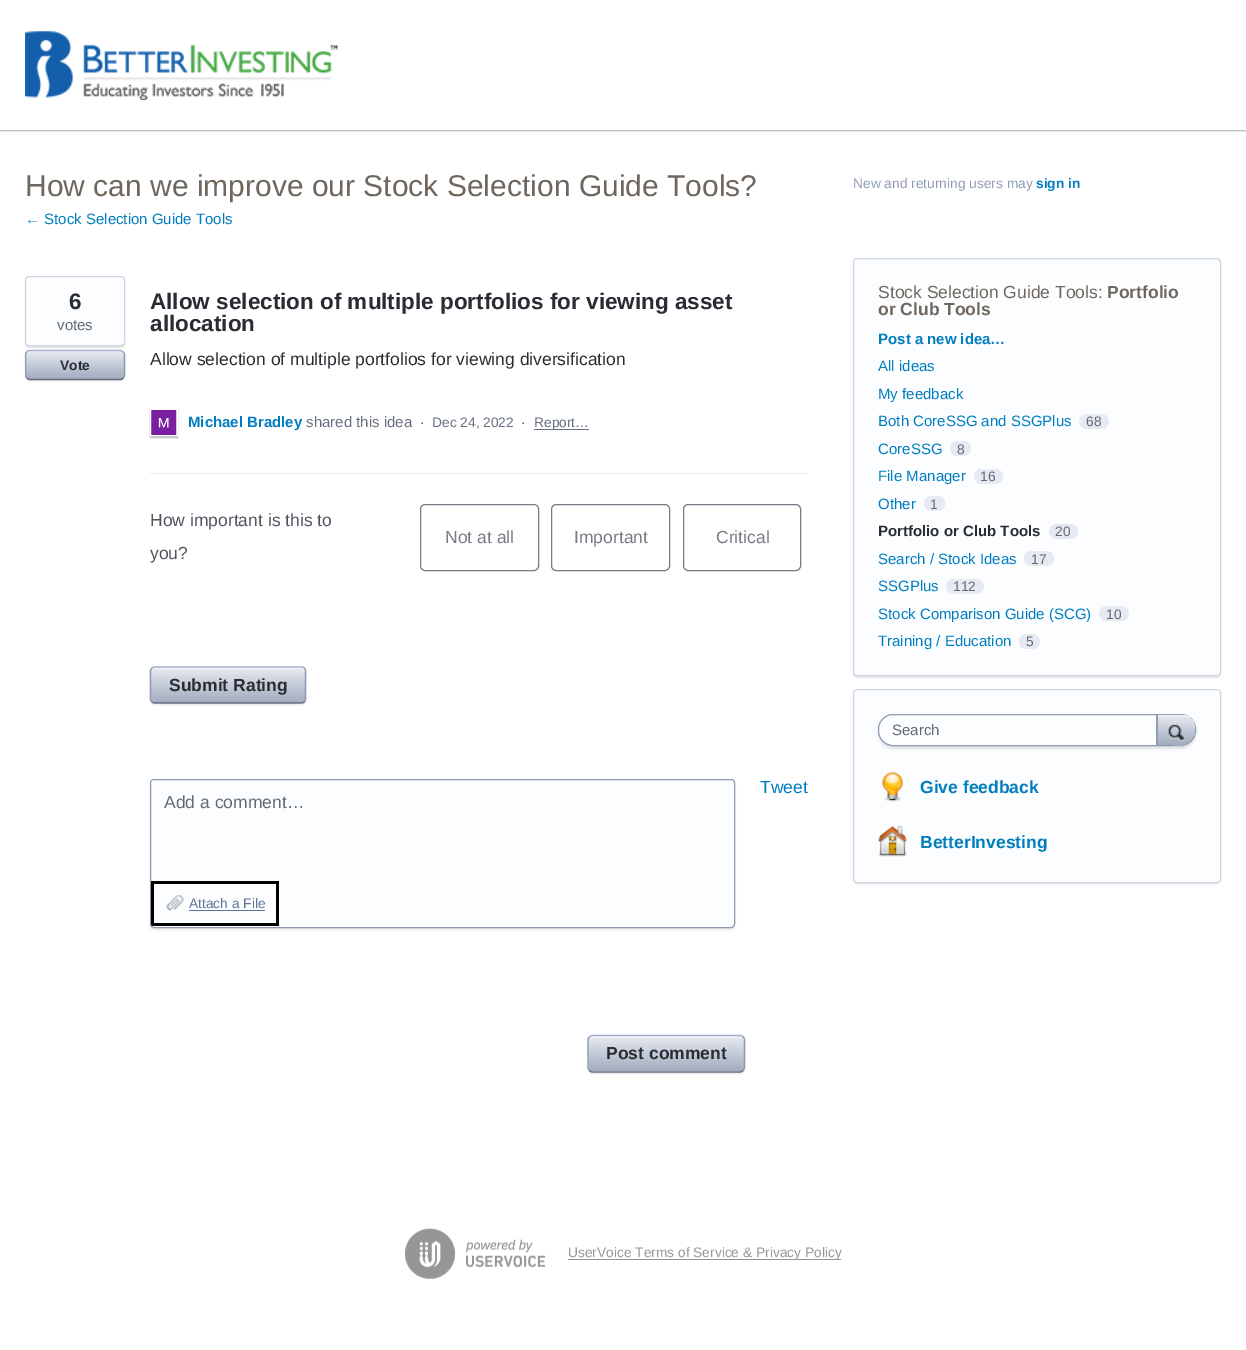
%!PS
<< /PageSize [1246 1350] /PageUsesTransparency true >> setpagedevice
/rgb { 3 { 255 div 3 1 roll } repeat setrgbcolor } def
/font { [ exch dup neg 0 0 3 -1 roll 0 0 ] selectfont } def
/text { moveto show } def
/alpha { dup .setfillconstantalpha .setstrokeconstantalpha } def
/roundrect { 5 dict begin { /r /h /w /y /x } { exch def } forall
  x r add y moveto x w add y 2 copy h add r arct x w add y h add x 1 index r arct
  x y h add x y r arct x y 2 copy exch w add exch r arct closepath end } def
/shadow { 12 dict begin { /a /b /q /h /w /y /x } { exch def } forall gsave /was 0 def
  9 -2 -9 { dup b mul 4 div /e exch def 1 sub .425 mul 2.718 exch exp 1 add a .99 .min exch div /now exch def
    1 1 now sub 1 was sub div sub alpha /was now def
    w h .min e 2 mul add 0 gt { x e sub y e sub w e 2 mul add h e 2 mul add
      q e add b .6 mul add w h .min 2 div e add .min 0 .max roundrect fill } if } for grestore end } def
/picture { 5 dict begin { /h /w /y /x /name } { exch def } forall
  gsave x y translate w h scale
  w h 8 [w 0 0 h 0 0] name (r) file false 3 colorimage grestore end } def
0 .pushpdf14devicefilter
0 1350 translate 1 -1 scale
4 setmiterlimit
255 255 255 rgb
0 0 1246 1350 rectfill
191 191 191 rgb
0 130 1246 1 rectfill
(img_01.rgb) 25 31 313 69 picture
227 232 242 rgb
0 131 1246 1 rectfill
0 0 0 rgb
25 278 100 70 4 0.5 0.1 shadow
252 253 255 rgb
25.5 276.5 99 69 3.5 roundrect gsave fill grestore
207 215 230 rgb
stroke
0 0 0 rgb
25 351 100 30 5 1 0.1 shadow
gsave 26 351 98 28 4 roundrect clip newpath
<< /ShadingType 2 /ColorSpace /DeviceRGB /Coords [26 351 26 379] /Extend [true true] /Function << /FunctionType 2 /Domain [0 1] /C0 [0.902 0.918 0.949] /C1 [0.635 0.675 0.749] /N 1 >> >> shfill grestore
0.5 alpha
255 255 255 rgb
30 352 moveto 90 0 rlineto 2 0 4 2 4 4 rcurveto 0 -9 -15 -5 -19 -5 rcurveto -60 0 rlineto -4 0 -19 -4 -19 5 rcurveto 0 -2 2 -4 4 -4 rcurveto closepath fill
1 alpha
163 177 204 rgb
1.2 setlinewidth
27 352 moveto 0.5 -1 2 -1.5 3 -1.5 rcurveto 90 0 rlineto 1 0 2.5 0.5 3 1.5 rcurveto stroke
143 155 179 rgb
123 352 moveto 1 0.5 1.5 2 1.5 3 rcurveto 0 20 rlineto 0 1 -0.5 2.5 -1.5 3 rcurveto stroke
102 111 128 rgb
123 378 moveto -0.5 1 -2 1.5 -3 1.5 rcurveto -90 0 rlineto -1 0 -2.5 -0.5 -3 -1.5 rcurveto stroke
gsave
25 164 1196 984 rectclip
143 155 179 rgb
27 378 moveto -1 -0.5 -1.5 -2 -1.5 -3 rcurveto 0 -20 rlineto 0 -1 0.5 -2.5 1.5 -3 rcurveto stroke
grestore
0 0 0 rgb
150 410 28 28 0 0.5 0.25 shadow
255 255 255 rgb
1 setlinewidth
150.5 409.5 27 26 rectstroke
(img_02.rgb) 151 410 26 25 picture
102 111 128 rgb
534 429 55 1 rectfill
235 235 241 rgb
150 473 658 1 rectfill
121 121 134 rgb
420.5 504.5 118 66 4.5 roundrect stroke
551.5 504.5 118 66 4.5 roundrect stroke
683.5 504.5 117 66 4.5 roundrect stroke
0 0 0 rgb
150 668 156 37 5 1 0.1 shadow
gsave 151 668 154 35 4 roundrect clip newpath
<< /ShadingType 2 /ColorSpace /DeviceRGB /Coords [151 668 151 703] /Extend [true true] /Function << /FunctionType 2 /Domain [0 1] /C0 [0.902 0.918 0.949] /C1 [0.635 0.675 0.749] /N 1 >> >> shfill grestore
0.5 alpha
255 255 255 rgb
155 669 moveto 146 0 rlineto 2 0 4 1 4 3 rcurveto -1 -3 rlineto -3 -1 rlineto -146 0 rlineto -2 0 -4 2 -4 4 rcurveto 0 -2 2 -3 4 -3 rcurveto closepath fill
1 alpha
163 177 204 rgb
1.2 setlinewidth
152 668 moveto 0.5 -0.5 2 -1 3 -1 rcurveto 146 0 rlineto 1.5 0 2.5 0.5 3.5 1 rcurveto stroke
143 155 179 rgb
304.5 668 moveto 0.5 1 1 2 1 3 rcurveto 0 28 rlineto 0 1 -0.5 2 -1 3 rcurveto stroke
102 111 128 rgb
304.5 702 moveto -1 0.5 -2 1 -3.5 1 rcurveto -146 0 rlineto -1 0 -2.5 -0.5 -3 -1 rcurveto stroke
143 155 179 rgb
152 702 moveto -1 -1 -1.5 -2 -1.5 -3 rcurveto 0 -28 rlineto 0 -1 0.5 -2 1.5 -3 rcurveto stroke
0 0 0 rgb
150 781 585 149 4 1 0.1 shadow
252 253 255 rgb
150.5 779.5 584 148 3.5 roundrect gsave fill grestore
143 155 179 rgb
1 setlinewidth
stroke
(img_03.rgb) 166 895 18 16 picture
0 0 0 rgb
151 881 moveto 0 43 rlineto 0 1 1 2 3 2 rcurveto 125 0 rlineto 0 -45 rlineto closepath 154 884 moveto 0 39 rlineto 122 0 rlineto 0 -39 rlineto closepath eofill
93 114 152 rgb
189 910 76 1 rectfill
0 0 0 rgb
588 1036 157 38 5 1 0.1 shadow
gsave 589 1036 155 35 4 roundrect clip newpath
<< /ShadingType 2 /ColorSpace /DeviceRGB /Coords [589 1036 589 1071] /Extend [true true] /Function << /FunctionType 2 /Domain [0 1] /C0 [0.902 0.918 0.949] /C1 [0.635 0.675 0.749] /N 1 >> >> shfill grestore
0.5 alpha
255 255 255 rgb
592 1038 moveto 148 0 rlineto 2 0 4 1 4 3 rcurveto 0 -2 -1 -4 -3 -5 rcurveto -149 0 rlineto -2 1 -3 3 -3 5 rcurveto 0 -2 1 -3 3 -3 rcurveto closepath fill
1 alpha
163 177 204 rgb
1.2 setlinewidth
589.5 1037 moveto 0.5 -1 2 -1.5 3 -1.5 rcurveto 147.5 0 rlineto 1 0 2.5 0.5 3 1.5 rcurveto stroke
143 155 179 rgb
743 1037 moveto 1 0.5 1.5 2 1.5 3 rcurveto 0 27.5 rlineto 0 1 -0.5 2.5 -1.5 3 rcurveto stroke
102 111 128 rgb
743 1070.5 moveto -0.5 1 -2 1.5 -3 1.5 rcurveto -147.5 0 rlineto -1 0 -2.5 -0.5 -3 -1.5 rcurveto stroke
143 155 179 rgb
589.5 1070.5 moveto -1 -0.5 -1.5 -2 -1.5 -3 rcurveto 0 -27.5 rlineto 0 -1 0.5 -2.5 1.5 -3 rcurveto stroke
0 0 0 rgb
853 259 368 419 4 0.5 0.1 shadow
252 253 255 rgb
853.5 258.5 367 417 3.5 roundrect gsave fill grestore
207 215 230 rgb
1 setlinewidth
stroke
231 234 242 rgb
1079 414 30 15 7.5 roundrect fill
950 441 21 15 7.5 roundrect fill
974 469 29 15 7.5 roundrect fill
924 496 21 15 7.5 roundrect fill
1049 524 29 15 7.5 roundrect fill
1024 551 30 15 7.5 roundrect fill
946 579 38 15 7.5 roundrect fill
1099 606 30 15 7.5 roundrect fill
1019 634 21 15 7.5 roundrect fill
0 0 0 rgb
853 690 368 194 4 0.5 0.1 shadow
252 253 255 rgb
853.5 689.5 367 193 3.5 roundrect gsave fill grestore
207 215 230 rgb
stroke
0 0 0 rgb
878 716 318 33 15 1 0.1 shadow
252 253 255 rgb
878.5 714.5 317 31 14.5 roundrect gsave fill grestore
143 155 179 rgb
stroke
gsave
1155 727 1 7 rectclip
0 0 0 rgb
1156 715 40 31 15 1 0.1 shadow
grestore
gsave 1157.5 715 moveto 0 30 rlineto 15.5 0 rlineto 4.5 0 9.5 1 13.5 -1 rcurveto 13.5 -7 10.5 -29 -5.5 -29 rcurveto closepath clip newpath
<< /ShadingType 2 /ColorSpace /DeviceRGB /Coords [1158 715 1158 745] /Extend [true true] /Function << /FunctionType 2 /Domain [0 1] /C0 [0.902 0.918 0.949] /C1 [0.635 0.675 0.749] /N 1 >> >> shfill grestore
0.5 alpha
255 255 255 rgb
1158 716 moveto 23 0 rlineto 8 0 14 6 14 14 rcurveto 0 -1 rlineto 0 -7.5 -6.5 -14 -14 -14 rcurveto -23.5 0 rlineto 0 30 rlineto 0.5 0 rlineto closepath fill
1 alpha
143 155 179 rgb
1195 730 moveto 0 8 -6 15 -14 15 rcurveto 8.5 0 14 -7 14 -15 rcurveto closepath 1156 745 moveto 2 0 rlineto 0 -29.5 rlineto -0.5 -0.5 rlineto -1.5 0 rlineto closepath fill
(img_04.rgb) 1168 724 16 18 picture
(img_05.rgb) 882 772 21 30 picture
(img_06.rgb) 878 826 29 31 picture
(img_07.rgb) 405 1228 140 51 picture
150 150 150 rgb
568 1259 273 1 rectfill
/LiberationSans-Regular 30 font
111 103 94 rgb
(How can we improve our Stock Selection Guide Tools?) 25 196 text
/LiberationSans-Regular 15 font
0 125 191 rgb
(← Stock Selection Guide Tools) 25 224 text
/LiberationSans-Bold 22.5 font
41 44 51 rgb
(6) 69 309 text
/LiberationSans-Regular 15 font
97 105 115 rgb
(votes) 57 330 text
/LiberationSans-Bold 13.75 font
41 44 51 rgb
(Vote) 60 370 text
/LiberationSans-Bold 22.5 font
(Allow selection of multiple portfolios for viewing asset) 150 309 text
(allocation) 150 331 text
/LiberationSans-Regular 17.5 font
(Allow selection of multiple portfolios for viewing diversification) 150 365 text
/LiberationSans-Bold 15 font
0 125 191 rgb
(Michael Bradley) 188 427 text
/LiberationSans-Regular 15 font
102 111 128 rgb
(shared this idea) 306 427 text
/LiberationSans-Regular 13.75 font
97 105 115 rgb
(·) 420 427 text
102 111 128 rgb
(Dec 24, 2022) 432 427 text
97 105 115 rgb
(·) 521 427 text
102 111 128 rgb
(Report…) 534 427 text
/LiberationSans-Regular 17.5 font
82 82 96 rgb
(How important is this to) 150 526 text
(you?) 150 559 text
121 121 134 rgb
(Not at all) 445 543 text
(Important) 574 543 text
(Critical) 716 543 text
/LiberationSans-Bold 17.5 font
41 44 51 rgb
(Submit Rating) 169 691 text
/LiberationSans-Regular 17.5 font
0 125 191 rgb
(Tweet) 760 793 text
97 105 115 rgb
(Add a comment…) 164 808 text
/LiberationSans-Regular 13.75 font
93 114 152 rgb
(Attach a File) 189 908 text
/LiberationSans-Bold 17.5 font
41 44 51 rgb
(Post comment) 606 1059 text
/LiberationSans-Regular 13.75 font
143 155 179 rgb
(New and returning users may) 853 188 text
/LiberationSans-Bold 13.75 font
0 125 191 rgb
(sign in) 1036 188 text
/LiberationSans-Regular 17.5 font
111 103 94 rgb
(Stock Selection Guide Tools:) 878 298 text
/LiberationSans-Bold 17.5 font
(Portfolio) 1107 298 text
(or Club Tools) 878 315 text
/LiberationSans-Bold 15 font
0 125 191 rgb
(Post a new idea…) 878 344 text
/LiberationSans-Regular 15 font
(All ideas) 878 371 text
(My feedback) 878 399 text
(Both CoreSSG and SSGPlus) 878 426 text
/LiberationSans-Regular 13.75 font
97 105 115 rgb
(68) 1086 426 text
/LiberationSans-Regular 15 font
0 125 191 rgb
(CoreSSG) 878 454 text
/LiberationSans-Regular 13.75 font
97 105 115 rgb
(8) 957 454 text
/LiberationSans-Regular 15 font
0 125 191 rgb
(File Manager) 878 481 text
/LiberationSans-Regular 13.75 font
97 105 115 rgb
(16) 980 481 text
/LiberationSans-Regular 15 font
0 125 191 rgb
(Other) 878 509 text
/LiberationSans-Regular 13.75 font
97 105 115 rgb
(1) 930 509 text
/LiberationSans-Bold 15 font
41 44 51 rgb
(Portfolio or Club Tools) 878 536 text
/LiberationSans-Regular 13.75 font
97 105 115 rgb
(20) 1055 536 text
/LiberationSans-Regular 15 font
0 125 191 rgb
(Search / Stock Ideas) 878 564 text
/LiberationSans-Regular 13.75 font
97 105 115 rgb
(17) 1031 564 text
/LiberationSans-Regular 15 font
0 125 191 rgb
(SSGPlus) 878 591 text
/LiberationSans-Regular 13.75 font
97 105 115 rgb
(112) 953 591 text
/LiberationSans-Regular 15 font
0 125 191 rgb
(Stock Comparison Guide \(SCG\)) 878 619 text
/LiberationSans-Regular 13.75 font
97 105 115 rgb
(10) 1106 619 text
/LiberationSans-Regular 15 font
0 125 191 rgb
(Training / Education) 878 646 text
/LiberationSans-Regular 13.75 font
97 105 115 rgb
(5) 1026 646 text
/LiberationSans-Regular 15 font
(Search) 892 735 text
/LiberationSans-Bold 17.5 font
0 125 191 rgb
(Give feedback) 920 793 text
(BetterInvesting) 920 848 text
/LiberationSans-Regular 13.75 font
150 150 150 rgb
(UserVoice Terms of Service & Privacy Policy) 568 1257 text
.poppdf14devicefilter showpage
